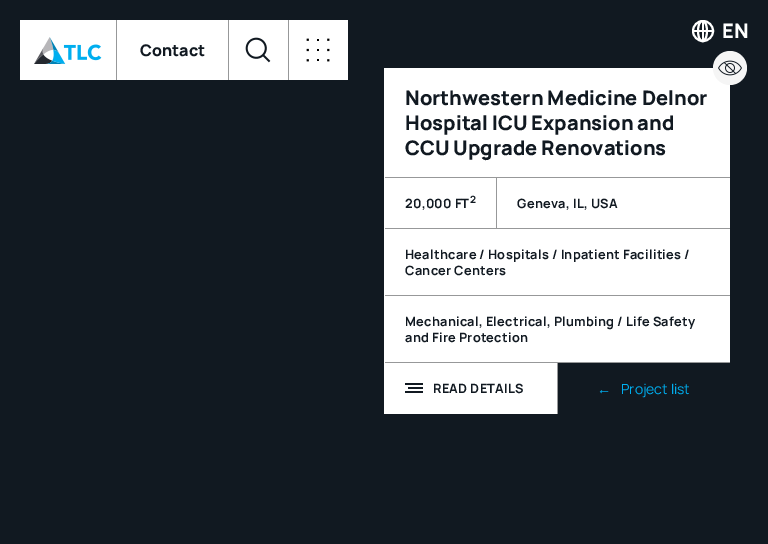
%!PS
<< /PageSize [768 544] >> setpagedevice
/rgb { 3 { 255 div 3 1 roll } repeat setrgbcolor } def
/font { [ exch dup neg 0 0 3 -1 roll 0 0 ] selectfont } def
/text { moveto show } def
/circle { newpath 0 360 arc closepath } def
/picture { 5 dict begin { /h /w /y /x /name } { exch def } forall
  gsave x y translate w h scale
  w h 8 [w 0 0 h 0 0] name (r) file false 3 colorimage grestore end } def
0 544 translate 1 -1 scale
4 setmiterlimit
17 25 33 rgb
0 0 768 544 rectfill
255 255 255 rgb
2 setlinewidth
703 31 10 circle stroke
702 22 2 18 rectfill
702.5 21 moveto 6 0 6 20 0 20 rcurveto -6 0 -6 -20 0 -20 rcurveto closepath stroke
694 30 18 2 rectfill
20 20 328 60 rectfill
(img_01.rgb) 34 37 68 27 picture
151 152 153 rgb
116 20 1 60 rectfill
228 20 1 60 rectfill
(img_02.rgb) 245 37 26 26 picture
288 20 1 60 rectfill
(img_03.rgb) 306 38 24 24 picture
255 255 255 rgb
384 68 346 346 rectfill
245 245 245 rgb
730 68 17 circle fill
(img_04.rgb) 718 60 24 16 picture
151 152 153 rgb
385 177 345 1 rectfill
496 178 1 51 rectfill
385 228 345 1 rectfill
385 295 345 1 rectfill
385 362 345 1 rectfill
557 363 1 51 rectfill
17 25 33 rgb
405 383 18 2 rectfill
408 387 15 2 rectfill
405 391 18 2 rectfill
558 363 172 51 rectfill
/Manrope-ExtraBold 20 font
255 255 255 rgb
(EN) 722 38 text
/Manrope-ExtraBold 16 font
17 25 33 rgb
(Contact) 140 56 text
/Manrope-ExtraBold 20 font
(Northwestern Medicine Delnor) 405 105 text
(Hospital ICU Expansion and) 405 130 text
(CCU Upgrade Renovations) 405 155 text
/Manrope-Bold 12.8 font
405 208 moveto 0.25 0 (20,000 FT) ashow
/Manrope-Bold 10 font
470 203 moveto 0.25 0 (2) ashow
/Manrope-Bold 12.8 font
517 208 moveto 0.25 0 (Geneva, IL, USA) ashow
405 259 moveto 0.25 0 (Healthcare / Hospitals / Inpatient Facilities /) ashow
405 275 moveto 0.25 0 (Cancer Centers) ashow
405 326 moveto 0.25 0 (Mechanical, Electrical, Plumbing / Life Safety) ashow
405 342 moveto 0.25 0 (and Fire Protection) ashow
433 393 moveto 0.25 0 (READ DETAILS) ashow
/LiberationSans-Regular 14 font
0 174 239 rgb
(←) 597 394 text
/Manrope-Regular 14 font
(Project list) 621 394 text
showpage
